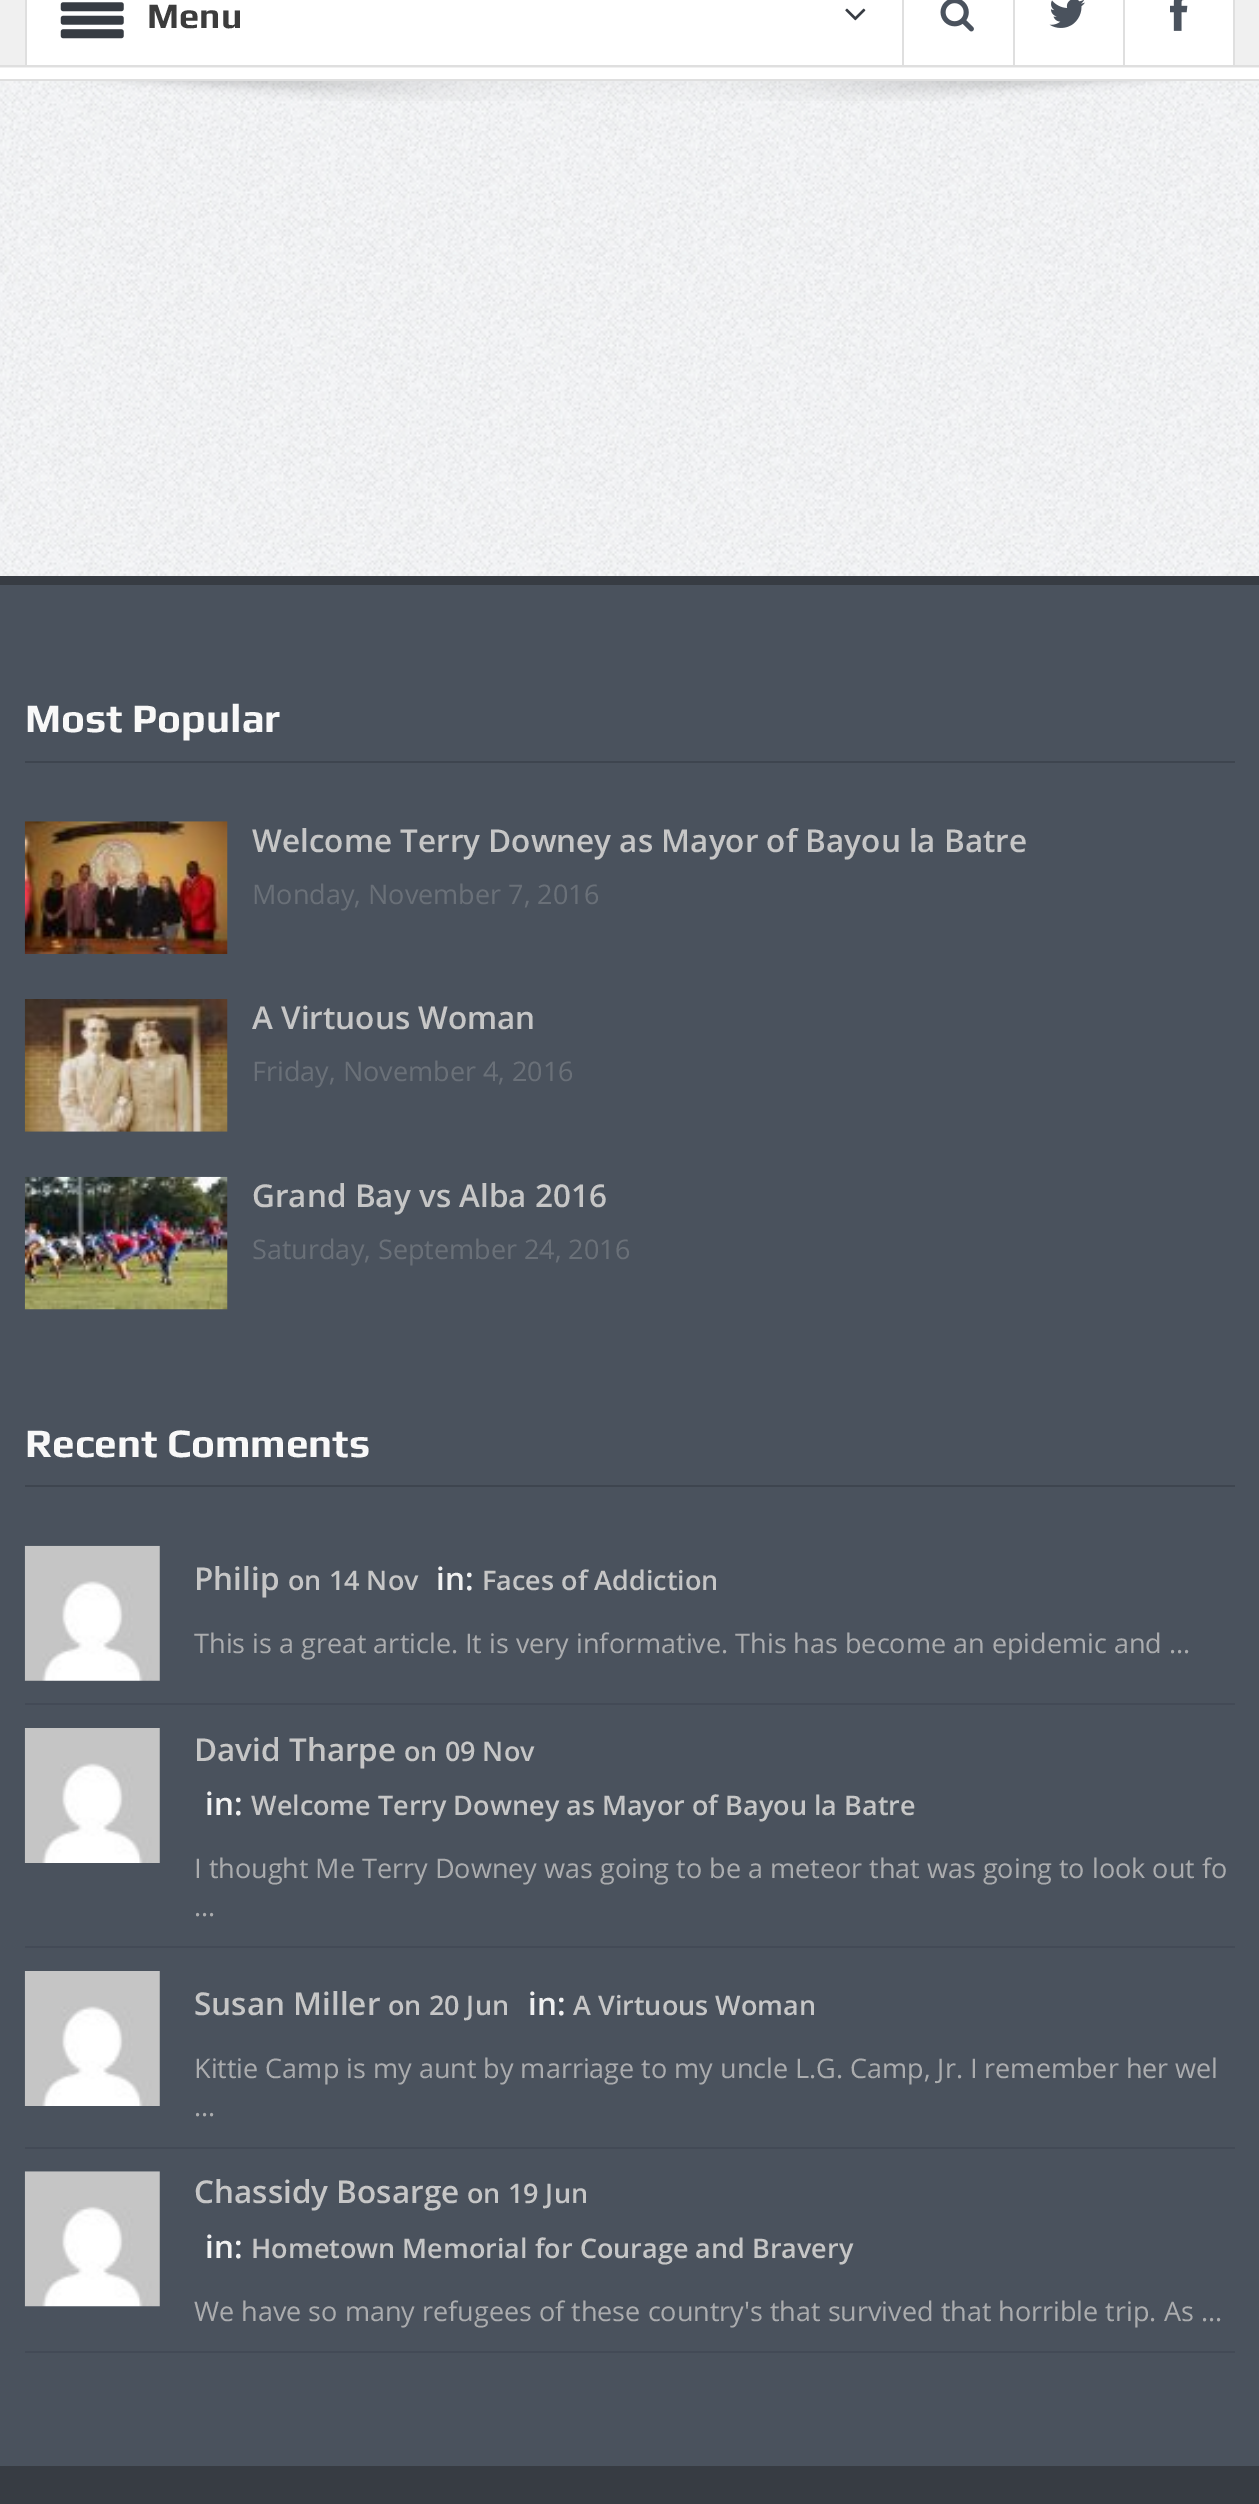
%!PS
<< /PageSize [1259 2504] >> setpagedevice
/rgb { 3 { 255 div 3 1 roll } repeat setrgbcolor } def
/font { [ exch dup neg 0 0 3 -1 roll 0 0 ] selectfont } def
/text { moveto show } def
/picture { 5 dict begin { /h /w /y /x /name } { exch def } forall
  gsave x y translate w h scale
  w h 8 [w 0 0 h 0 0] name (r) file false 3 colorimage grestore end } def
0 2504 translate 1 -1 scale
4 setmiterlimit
255 255 255 rgb
0 0 1259 2504 rectfill
(img_01.rgb) 0 81 1259 495 picture
223 223 223 rgb
0 79 1259 2 rectfill
240 240 240 rgb
0 0 1259 68 rectfill
223 223 223 rgb
0 65 1259 2 rectfill
255 255 255 rgb
27 0 875 65 rectfill
223 223 223 rgb
25 0 2 65 rectfill
(img_02.rgb) 60 2 64 37 picture
(img_03.rgb) 845 8 21 13 picture
255 255 255 rgb
904 0 109 65 rectfill
223 223 223 rgb
1013 0 2 65 rectfill
902 0 2 65 rectfill
(img_04.rgb) 940 0 34 32 picture
255 255 255 rgb
1015 0 108 65 rectfill
223 223 223 rgb
1123 0 2 65 rectfill
(img_05.rgb) 1049 0 36 28 picture
255 255 255 rgb
1125 0 108 65 rectfill
223 223 223 rgb
1233 0 2 65 rectfill
(img_06.rgb) 1170 0 18 31 picture
(img_07.rgb) 91 81 1082 20 picture
74 82 93 rgb
0 585 1259 1881 rectfill
55 60 67 rgb
0 576 1259 9 rectfill
62 69 79 rgb
25 761 1210 2 rectfill
(img_08.rgb) 24 821 204 133 picture
(img_09.rgb) 24 999 204 133 picture
(img_10.rgb) 24 1176 204 134 picture
25 1485 1210 2 rectfill
67 74 86 rgb
25 1703 1210 2 rectfill
(img_11.rgb) 24 1545 136 136 picture
25 1946 1210 2 rectfill
(img_12.rgb) 24 1728 136 135 picture
25 2147 1210 2 rectfill
(img_12.rgb) 24 1971 136 135 picture
25 2351 1210 2 rectfill
(img_13.rgb) 24 2171 136 136 picture
55 60 67 rgb
0 2466 1259 38 rectfill
/Play-Bold 36 font
60 60 60 rgb
(Menu) 147 28 text
/Play-Bold 40.5 font
248 248 248 rgb
(Most Popular) 25 732 text
/OpenSans-SemiBold 31.5 font
198 198 198 rgb
(Welcome Terry Downey as Mayor of Bayou la Batre) 252 852 text
/OpenSans-Regular 27 font
106 112 120 rgb
(Monday, November 7, 2016) 252 904 text
/OpenSans-SemiBold 31.5 font
198 198 198 rgb
(A Virtuous Woman) 252 1029 text
/OpenSans-Regular 27 font
106 112 120 rgb
(Friday, November 4, 2016) 252 1081 text
/OpenSans-SemiBold 31.5 font
198 198 198 rgb
(Grand Bay vs Alba 2016) 252 1207 text
/OpenSans-Regular 27 font
106 112 120 rgb
(Saturday, September 24, 2016) 252 1259 text
/Play-Bold 40.5 font
248 248 248 rgb
(Recent Comments) 25 1457 text
/OpenSans-SemiBold 31.5 font
198 198 198 rgb
(Philip) 194 1590 text
/OpenSans-SemiBold 27 font
(on 14 Nov) 288 1590 text
/OpenSans-SemiBold 31.5 font
240 240 240 rgb
(in:) 436 1590 text
/OpenSans-SemiBold 27 font
198 198 198 rgb
(Faces of Addiction) 482 1590 text
/OpenSans-Regular 27 font
171 172 174 rgb
(This is a great article. It is very informative. This has become an epidemic and ...) 194 1653 text
/OpenSans-SemiBold 31.5 font
198 198 198 rgb
(David Tharpe) 194 1761 text
/OpenSans-SemiBold 27 font
(on 09 Nov) 404 1761 text
/OpenSans-SemiBold 31.5 font
240 240 240 rgb
(in:) 205 1815 text
/OpenSans-SemiBold 27 font
198 198 198 rgb
(Welcome Terry Downey as Mayor of Bayou la Batre) 251 1815 text
/OpenSans-Regular 27 font
171 172 174 rgb
(I thought Me Terry Downey was going to be a meteor that was going to look out fo) 194 1878 text
(...) 194 1916 text
/OpenSans-SemiBold 31.5 font
198 198 198 rgb
(Susan Miller) 194 2015 text
/OpenSans-SemiBold 27 font
(on 20 Jun) 388 2015 text
/OpenSans-SemiBold 31.5 font
240 240 240 rgb
(in:) 528 2015 text
/OpenSans-SemiBold 27 font
198 198 198 rgb
(A Virtuous Woman) 573 2015 text
/OpenSans-Regular 27 font
171 172 174 rgb
(Kittie Camp is my aunt by marriage to my uncle L.G. Camp, Jr. I remember her wel) 194 2078 text
(...) 194 2116 text
/OpenSans-SemiBold 31.5 font
198 198 198 rgb
(Chassidy Bosarge) 194 2203 text
/OpenSans-SemiBold 27 font
(on 19 Jun) 467 2203 text
/OpenSans-SemiBold 31.5 font
240 240 240 rgb
(in:) 205 2258 text
/OpenSans-SemiBold 27 font
198 198 198 rgb
(Hometown Memorial for Courage and Bravery) 251 2258 text
/OpenSans-Regular 27 font
171 172 174 rgb
(We have so many refugees of these country's that survived that horrible trip. As ...) 194 2321 text
showpage
